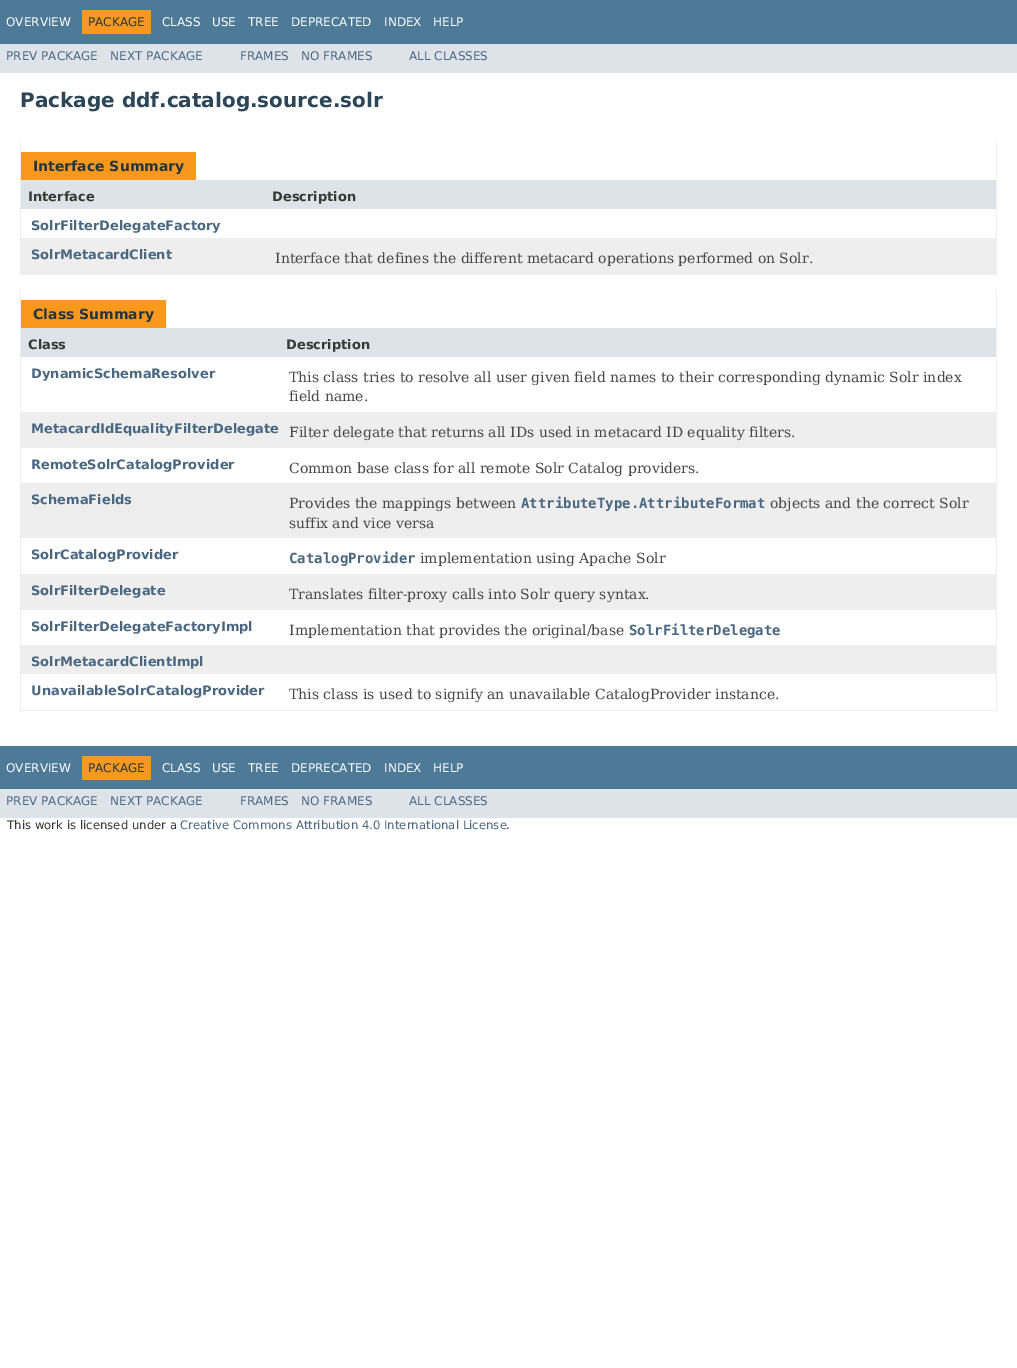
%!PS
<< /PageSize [1017 1368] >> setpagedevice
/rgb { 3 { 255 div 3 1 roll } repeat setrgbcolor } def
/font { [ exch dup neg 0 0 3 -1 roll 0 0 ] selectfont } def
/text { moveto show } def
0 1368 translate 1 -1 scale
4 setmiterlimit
255 255 255 rgb
0 0 1017 1368 rectfill
77 122 151 rgb
0 0 1017 44 rectfill
248 152 29 rgb
82 10 69 24 rectfill
222 227 233 rgb
0 44 1017 29 rectfill
238 238 238 rgb
996 142 1 133 rectfill
20 274 977 1 rectfill
20 142 1 133 rectfill
248 152 29 rgb
21 152 175 28 rectfill
222 227 233 rgb
21 180 975 29 rectfill
238 238 239 rgb
21 238 975 36 rectfill
238 238 238 rgb
996 290 1 421 rectfill
20 710 977 1 rectfill
20 290 1 421 rectfill
248 152 29 rgb
21 300 145 28 rectfill
222 227 233 rgb
21 328 975 29 rectfill
238 238 239 rgb
21 412 975 36 rectfill
21 483 975 55 rectfill
21 574 975 36 rectfill
21 645 975 29 rectfill
77 122 151 rgb
0 746 1017 43 rectfill
248 152 29 rgb
82 756 69 24 rectfill
222 227 233 rgb
0 789 1017 29 rectfill
/DejaVuSans-Regular 12 font
255 255 255 rgb
(OVERVIEW) 6 26 text
37 52 65 rgb
(PACKAGE) 88 26 text
255 255 255 rgb
(CLASS) 162 26 text
(USE) 212 26 text
(TREE) 248 26 text
(DEPRECATED) 291 26 text
(INDEX) 384 26 text
(HELP) 433 26 text
74 103 130 rgb
(PREV PACKAGE) 6 60 text
(NEXT PACKAGE) 110 60 text
(FRAMES) 240 60 text
(NO FRAMES) 301 60 text
(ALL CLASSES) 409 60 text
/DejaVuSans-Bold 20 font
44 69 87 rgb
(Package ddf.catalog.source.solr) 20 107 text
/DejaVuSans-Bold 14 font
37 52 65 rgb
(Interface Summary) 33 171 text
/DejaVuSans-Bold 13 font
53 56 51 rgb
(Interface) 28 201 text
(Description) 272 201 text
74 103 130 rgb
(SolrFilterDelegateFactory) 31 230 text
(SolrMetacardClient) 31 259 text
/DejaVuSerif-Regular 14 font
71 71 71 rgb
(Interface that defines the different metacard operations performed on Solr.) 275 263 text
/DejaVuSans-Bold 14 font
37 52 65 rgb
(Class Summary) 33 319 text
/DejaVuSans-Bold 13 font
53 56 51 rgb
(Class) 28 349 text
(Description) 286 349 text
74 103 130 rgb
(DynamicSchemaResolver) 31 378 text
/DejaVuSerif-Regular 14 font
71 71 71 rgb
(This class tries to resolve all user given field names to their corresponding dynamic Solr index) 289 382 text
(field name.) 289 401 text
/DejaVuSans-Bold 13 font
74 103 130 rgb
(MetacardIdEqualityFilterDelegate) 31 433 text
/DejaVuSerif-Regular 14 font
71 71 71 rgb
(Filter delegate that returns all IDs used in metacard ID equality filters.) 289 437 text
/DejaVuSans-Bold 13 font
74 103 130 rgb
(RemoteSolrCatalogProvider) 31 469 text
/DejaVuSerif-Regular 14 font
71 71 71 rgb
(Common base class for all remote Solr Catalog providers.) 289 473 text
/DejaVuSans-Bold 13 font
74 103 130 rgb
(SchemaFields) 31 504 text
/DejaVuSerif-Regular 14 font
71 71 71 rgb
(Provides the mappings between) 289 508 text
/DejaVuSansMono-Bold 14 font
74 103 130 rgb
(AttributeType.AttributeFormat) 521 508 text
/DejaVuSerif-Regular 14 font
71 71 71 rgb
(objects and the correct Solr) 770 508 text
(suffix and vice versa) 289 528 text
/DejaVuSans-Bold 13 font
74 103 130 rgb
(SolrCatalogProvider) 31 559 text
/DejaVuSansMono-Bold 14 font
(CatalogProvider) 289 563 text
/DejaVuSerif-Regular 14 font
71 71 71 rgb
(implementation using Apache Solr) 420 563 text
/DejaVuSans-Bold 13 font
74 103 130 rgb
(SolrFilterDelegate) 31 595 text
/DejaVuSerif-Regular 14 font
71 71 71 rgb
(Translates filter-proxy calls into Solr query syntax.) 289 599 text
/DejaVuSans-Bold 13 font
74 103 130 rgb
(SolrFilterDelegateFactoryImpl) 31 631 text
/DejaVuSerif-Regular 14 font
71 71 71 rgb
(Implementation that provides the original/base) 289 635 text
/DejaVuSansMono-Bold 14 font
74 103 130 rgb
(SolrFilterDelegate) 629 635 text
/DejaVuSans-Bold 13 font
(SolrMetacardClientImpl) 31 666 text
(UnavailableSolrCatalogProvider) 31 695 text
/DejaVuSerif-Regular 14 font
71 71 71 rgb
(This class is used to signify an unavailable CatalogProvider instance.) 289 699 text
/DejaVuSans-Regular 12 font
255 255 255 rgb
(OVERVIEW) 6 772 text
37 52 65 rgb
(PACKAGE) 88 772 text
255 255 255 rgb
(CLASS) 162 772 text
(USE) 212 772 text
(TREE) 248 772 text
(DEPRECATED) 291 772 text
(INDEX) 384 772 text
(HELP) 433 772 text
74 103 130 rgb
(PREV PACKAGE) 6 805 text
(NEXT PACKAGE) 110 805 text
(FRAMES) 240 805 text
(NO FRAMES) 301 805 text
(ALL CLASSES) 409 805 text
/DejaVuSans-Regular 11.7 font
53 56 51 rgb
(This work is licensed under a) 7 829 text
74 103 130 rgb
(Creative Commons Attribution 4.0 International License) 180 829 text
53 56 51 rgb
(.) 506 829 text
showpage
